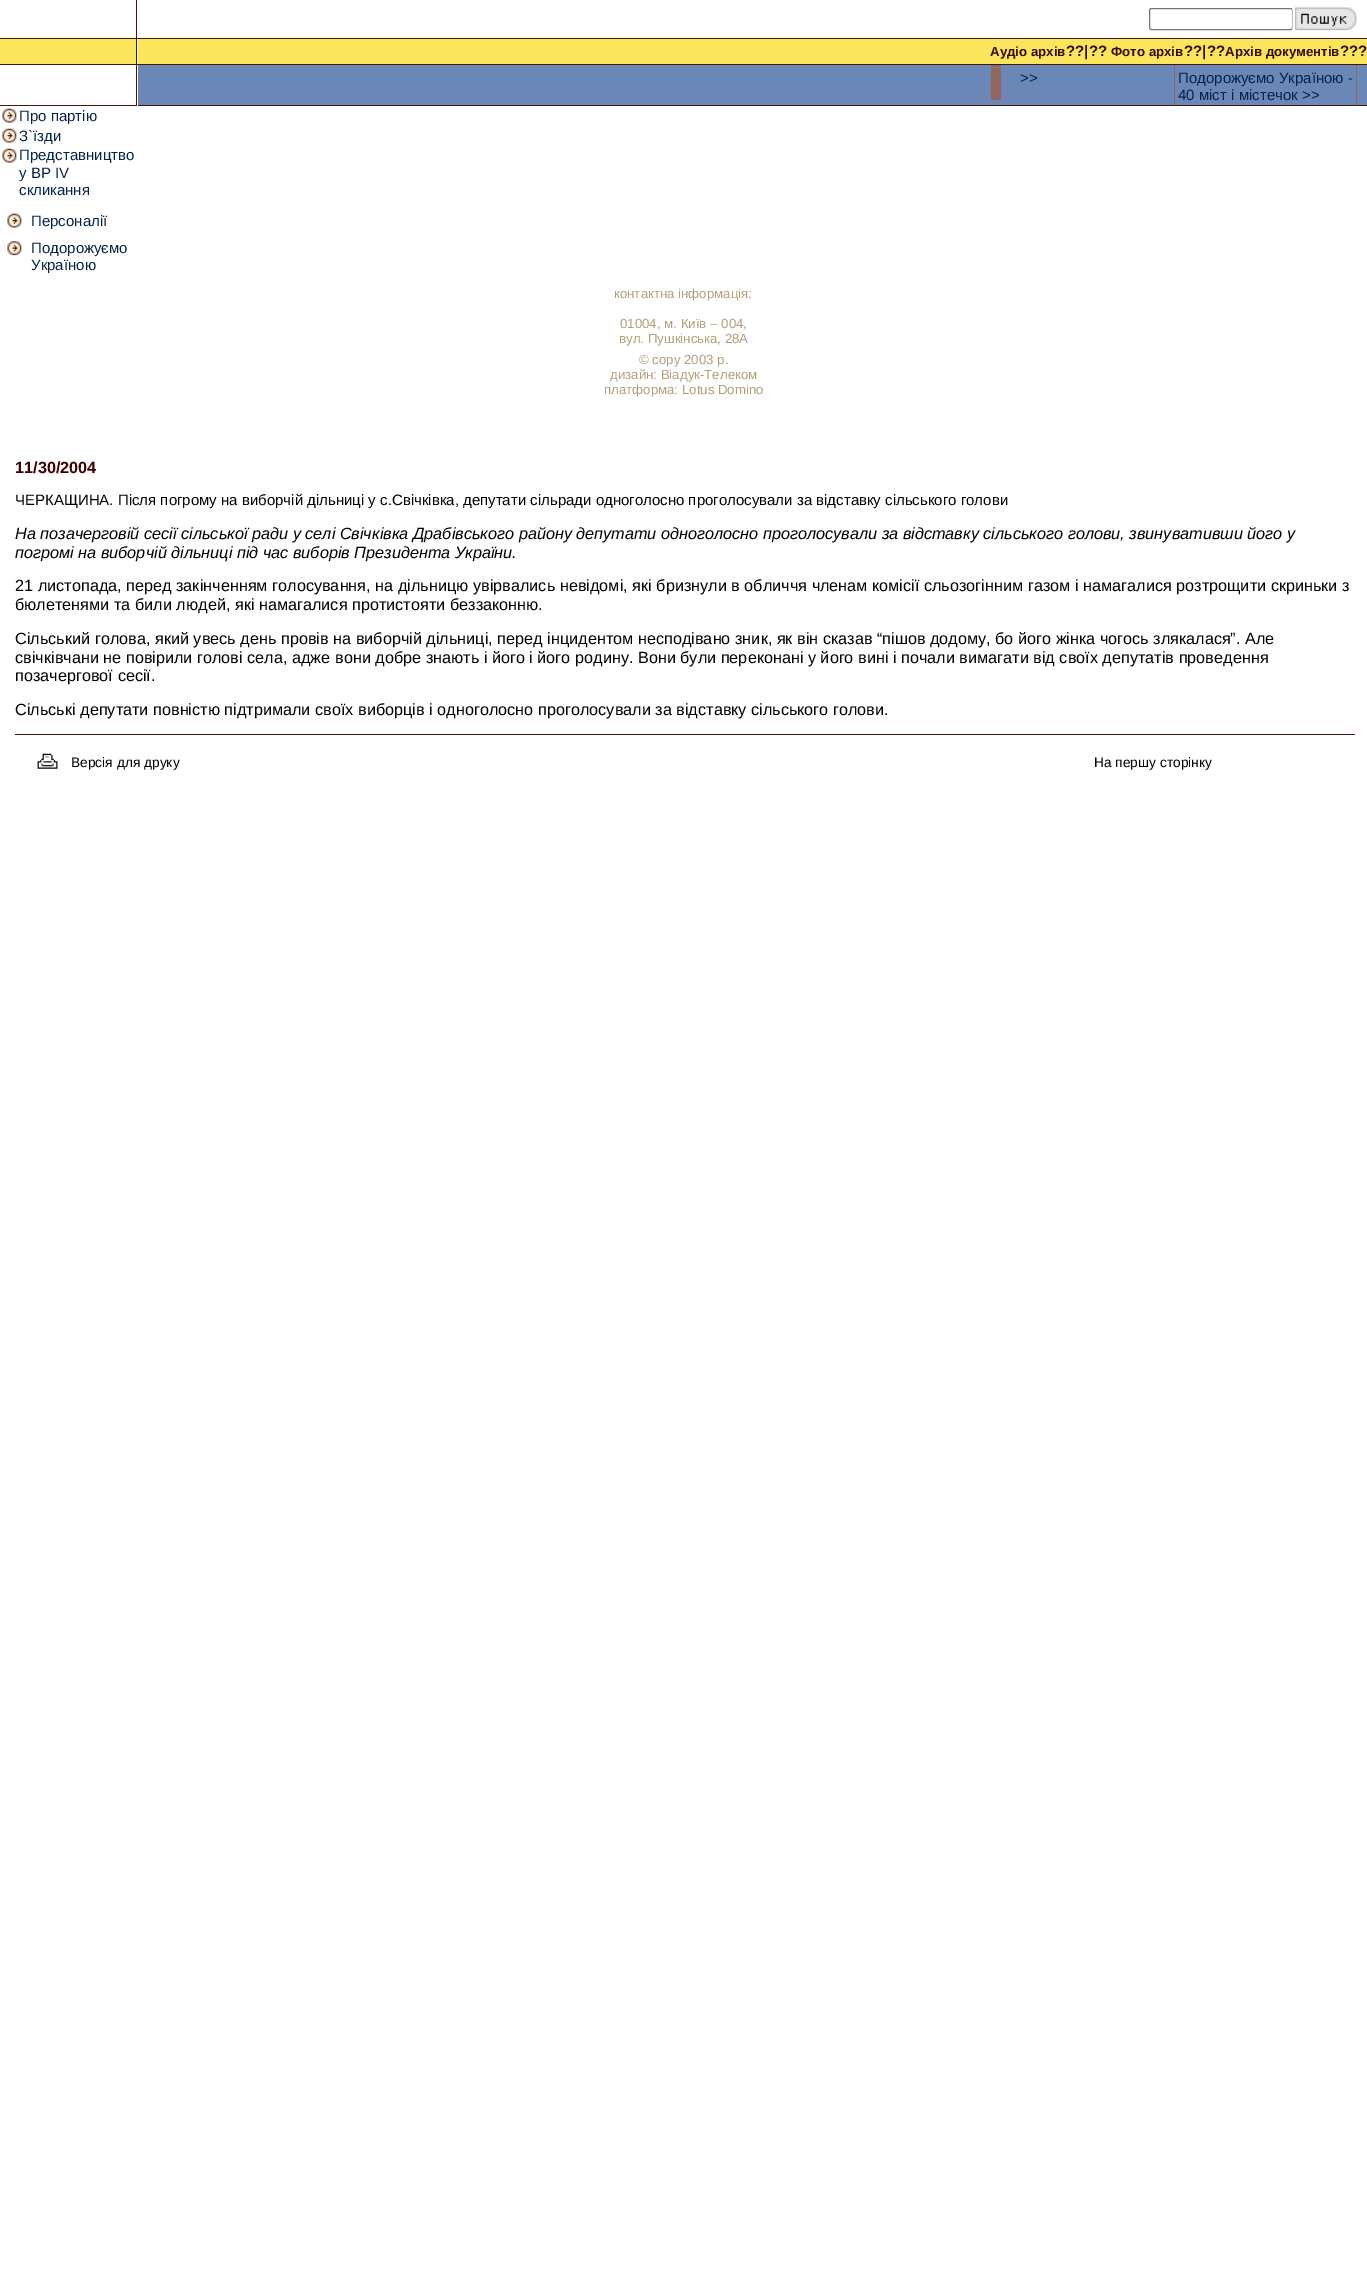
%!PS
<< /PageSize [1367 2287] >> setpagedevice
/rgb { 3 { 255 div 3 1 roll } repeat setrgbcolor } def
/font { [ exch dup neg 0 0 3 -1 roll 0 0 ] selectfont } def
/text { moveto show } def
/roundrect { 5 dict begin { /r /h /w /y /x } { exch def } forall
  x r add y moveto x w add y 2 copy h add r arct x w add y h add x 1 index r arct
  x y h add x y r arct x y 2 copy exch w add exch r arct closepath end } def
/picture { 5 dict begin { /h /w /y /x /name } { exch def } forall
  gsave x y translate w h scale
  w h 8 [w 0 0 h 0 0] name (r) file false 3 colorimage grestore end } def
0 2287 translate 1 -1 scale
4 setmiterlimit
255 255 255 rgb
0 0 1367 2287 rectfill
67 22 9 rgb
136 0 1 38 rectfill
118 118 118 rgb
1149.5 8.5 143 21 2 roundrect stroke
(img_01.rgb) 1292 7 65 24 picture
67 22 9 rgb
0 38 1367 1 rectfill
250 229 93 rgb
0 39 136 25 rectfill
67 22 9 rgb
136 39 1 25 rectfill
250 229 93 rgb
138 39 1229 25 rectfill
67 22 9 rgb
0 64 1367 1 rectfill
136 65 1 40 rectfill
106 135 184 rgb
138 65 1229 40 rectfill
146 102 90 rgb
991 65 10 2 rectfill
991 68 10 32 rectfill
1174 65 1 2 rectfill
1174 68 1 37 rectfill
1356 65 1 40 rectfill
67 22 9 rgb
0 105 137 1 rectfill
138 105 1229 1 rectfill
(img_02.rgb) 2 108 15 15 picture
(img_02.rgb) 2 128 15 15 picture
(img_02.rgb) 2 148 15 15 picture
(img_02.rgb) 7 213 15 15 picture
(img_03.rgb) 7 241 15 15 picture
15 734 1340 1 rectfill
(img_04.rgb) 37 753 21 16 picture
/LiberationSans-Bold 13.25 font
56 12 0 rgb
(Аудіо архів) 990 56 text
/LiberationSans-Bold 15 font
(??|??) 1066 56 text
/LiberationSans-Bold 13.25 font
(Фото архів) 1111 56 text
/LiberationSans-Bold 15 font
(??|??) 1184 56 text
/LiberationSans-Bold 13.25 font
(Архів документів) 1225 56 text
/LiberationSans-Bold 15 font
(???) 1340 56 text
/LiberationSans-Regular 15 font
1 36 71 rgb
(>>) 1020 83 text
(Подорожуємо Україною -) 1178 83 text
(40 міст і містечок >>) 1178 100 text
(Про партію) 19 121 text
(З`їзди) 19 141 text
(Представництво) 19 160 text
(у ВР IV) 19 178 text
(скликання) 19 195 text
(Персоналії) 31 226 text
(Подорожуємо) 31 253 text
(Україною) 31 270 text
/LiberationSans-Regular 13.25 font
178 159 121 rgb
(контактна інформація:) 614 298 text
(01004, м. Київ – 004,) 620 328 text
(вул. Пушкінська, 28А) 619 343 text
(© copy 2003 р.) 639 364 text
(дизайн: Віадук-Телеком) 610 379 text
(платформа: Lotus Domino) 604 394 text
/LiberationSans-Bold 16.25 font
64 0 0 rgb
(11/30/2004) 15 473 text
/LiberationSans-Regular 15 font
0 0 0 rgb
(ЧЕРКАЩИНА. Після погрому на виборчій дільниці у с.Свічківка, депутати сільради одноголосно проголосували за відставку сільського голови) 15 505 text
/LiberationSans-Italic 16.25 font
(На позачерговій сесії сільської ради у селі Свічківка Драбівського району депутати одноголосно проголосували за відставку сільського голови, звинувативши його у) 15 539 text
(погромі на виборчій дільниці під час виборів Президента України.) 15 558 text
/LiberationSans-Regular 16.25 font
(21 листопада, перед закінченням голосування, на дільницю увірвались невідомі, які бризнули в обличчя членам комісії сльозогінним газом і намагалися розтрощити скриньки з) 15 591 text
(бюлетенями та били людей, які намагалися протистояти беззаконню.) 15 610 text
(Сільський голова, який увесь день провів на виборчій дільниці, перед інцидентом несподівано зник, як він сказав “пішов додому, бо його жінка чогось злякалася”. Але) 15 644 text
(свічківчани не повірили голові села, адже вони добре знають і його і його родину. Вони були переконані у його вині і почали вимагати від своїх депутатів проведення) 15 663 text
(позачергової сесії.) 15 681 text
(Сільські депутати повністю підтримали своїх виборців і одноголосно проголосували за відставку сільського голови.) 15 715 text
/LiberationSans-Regular 13.75 font
(Версія для друку) 71 767 text
(На першу сторінку) 1094 767 text
showpage
